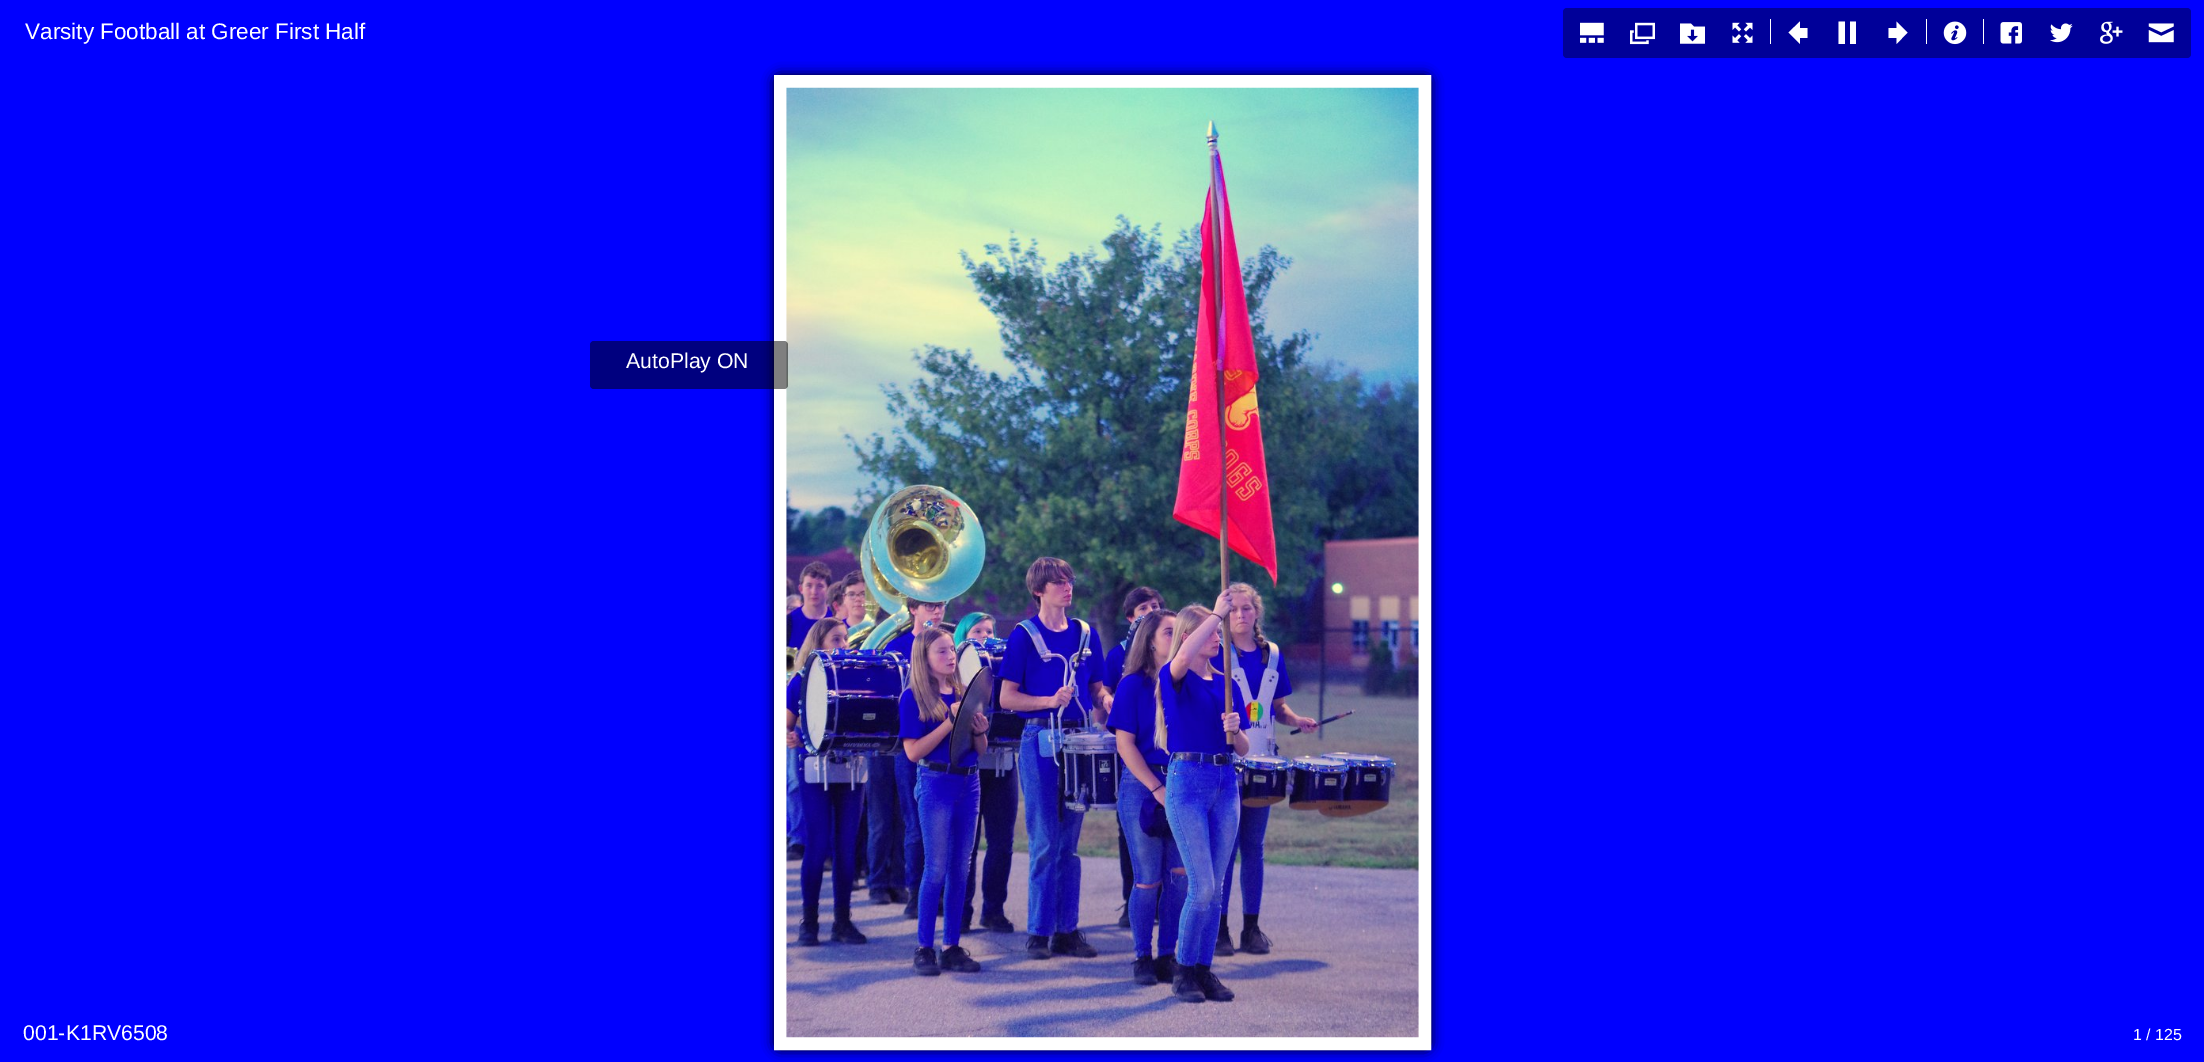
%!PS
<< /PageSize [2204 1062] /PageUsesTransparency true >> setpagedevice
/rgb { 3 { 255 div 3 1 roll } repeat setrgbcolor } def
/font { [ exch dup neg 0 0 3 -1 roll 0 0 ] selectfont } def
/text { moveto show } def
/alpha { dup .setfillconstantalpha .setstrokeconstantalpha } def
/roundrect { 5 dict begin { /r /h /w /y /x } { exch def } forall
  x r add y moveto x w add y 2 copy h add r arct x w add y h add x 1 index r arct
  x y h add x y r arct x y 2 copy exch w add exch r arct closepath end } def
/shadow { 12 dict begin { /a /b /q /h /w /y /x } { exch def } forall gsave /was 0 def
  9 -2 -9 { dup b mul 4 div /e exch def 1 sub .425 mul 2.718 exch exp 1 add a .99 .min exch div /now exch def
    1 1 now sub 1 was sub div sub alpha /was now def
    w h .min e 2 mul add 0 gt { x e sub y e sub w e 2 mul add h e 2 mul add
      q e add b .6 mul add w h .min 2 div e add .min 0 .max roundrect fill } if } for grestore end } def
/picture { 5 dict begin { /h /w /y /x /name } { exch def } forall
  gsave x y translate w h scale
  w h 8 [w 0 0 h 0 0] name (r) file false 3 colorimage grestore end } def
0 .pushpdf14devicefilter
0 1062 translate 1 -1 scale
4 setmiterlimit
0 0 255 rgb
0 0 2204 1062 rectfill
0 0 153 rgb
1563 8 628 50 4 roundrect fill
(img_01.rgb) 1580 22 24 21 picture
(img_02.rgb) 1630 22 25 23 picture
(img_03.rgb) 1680 23 25 21 picture
(img_04.rgb) 1732 22 21 21 picture
255 255 255 rgb
1770 19 1 25 rectfill
1800 21.5 moveto 0 6.5 rlineto 7.5 0 rlineto 0 10 rlineto -7.5 0 rlineto 0 6 rlineto -11.5 -11.5 rlineto closepath fill
1856 44 moveto -6 0 rlineto 0 -22.5 rlineto 6 0 rlineto closepath 1838.5 21.5 moveto 6.5 0 rlineto 0 22.5 rlineto -6.5 0 rlineto closepath fill
1896.5 44 moveto 0 -6 rlineto -8 0 rlineto 0 -10 rlineto 8 0 rlineto 0 -6.5 rlineto 11 11 rlineto closepath fill
1926 19 1 25 rectfill
(img_05.rgb) 1943 21 24 24 picture
1983 19 1 25 rectfill
(img_06.rgb) 2000 22 22 22 picture
(img_07.rgb) 2050 23 23 20 picture
(img_08.rgb) 2100 21 23 23 picture
(img_09.rgb) 2148 23 26 20 picture
0 0 0 rgb
774 75 657 975 6 6 1 shadow
255 255 255 rgb
13 setlinewidth
780.5 81.5 644 962 rectstroke
(img_10.rgb) 786 87 633 951 picture
0.5 alpha
0 0 0 rgb
590 341 198 48 4 roundrect fill
/LiberationSans-Regular 22.5 font
1 alpha
255 255 255 rgb
(Varsity Football at Greer First Half) 25 39 text
/LiberationSans-Regular 21.25 font
(AutoPlay ON) 626 368 text
(001-K1RV6508) 23 1040 text
/LiberationSans-Regular 16 font
(1 / 125) 2133 1040 text
.poppdf14devicefilter showpage
